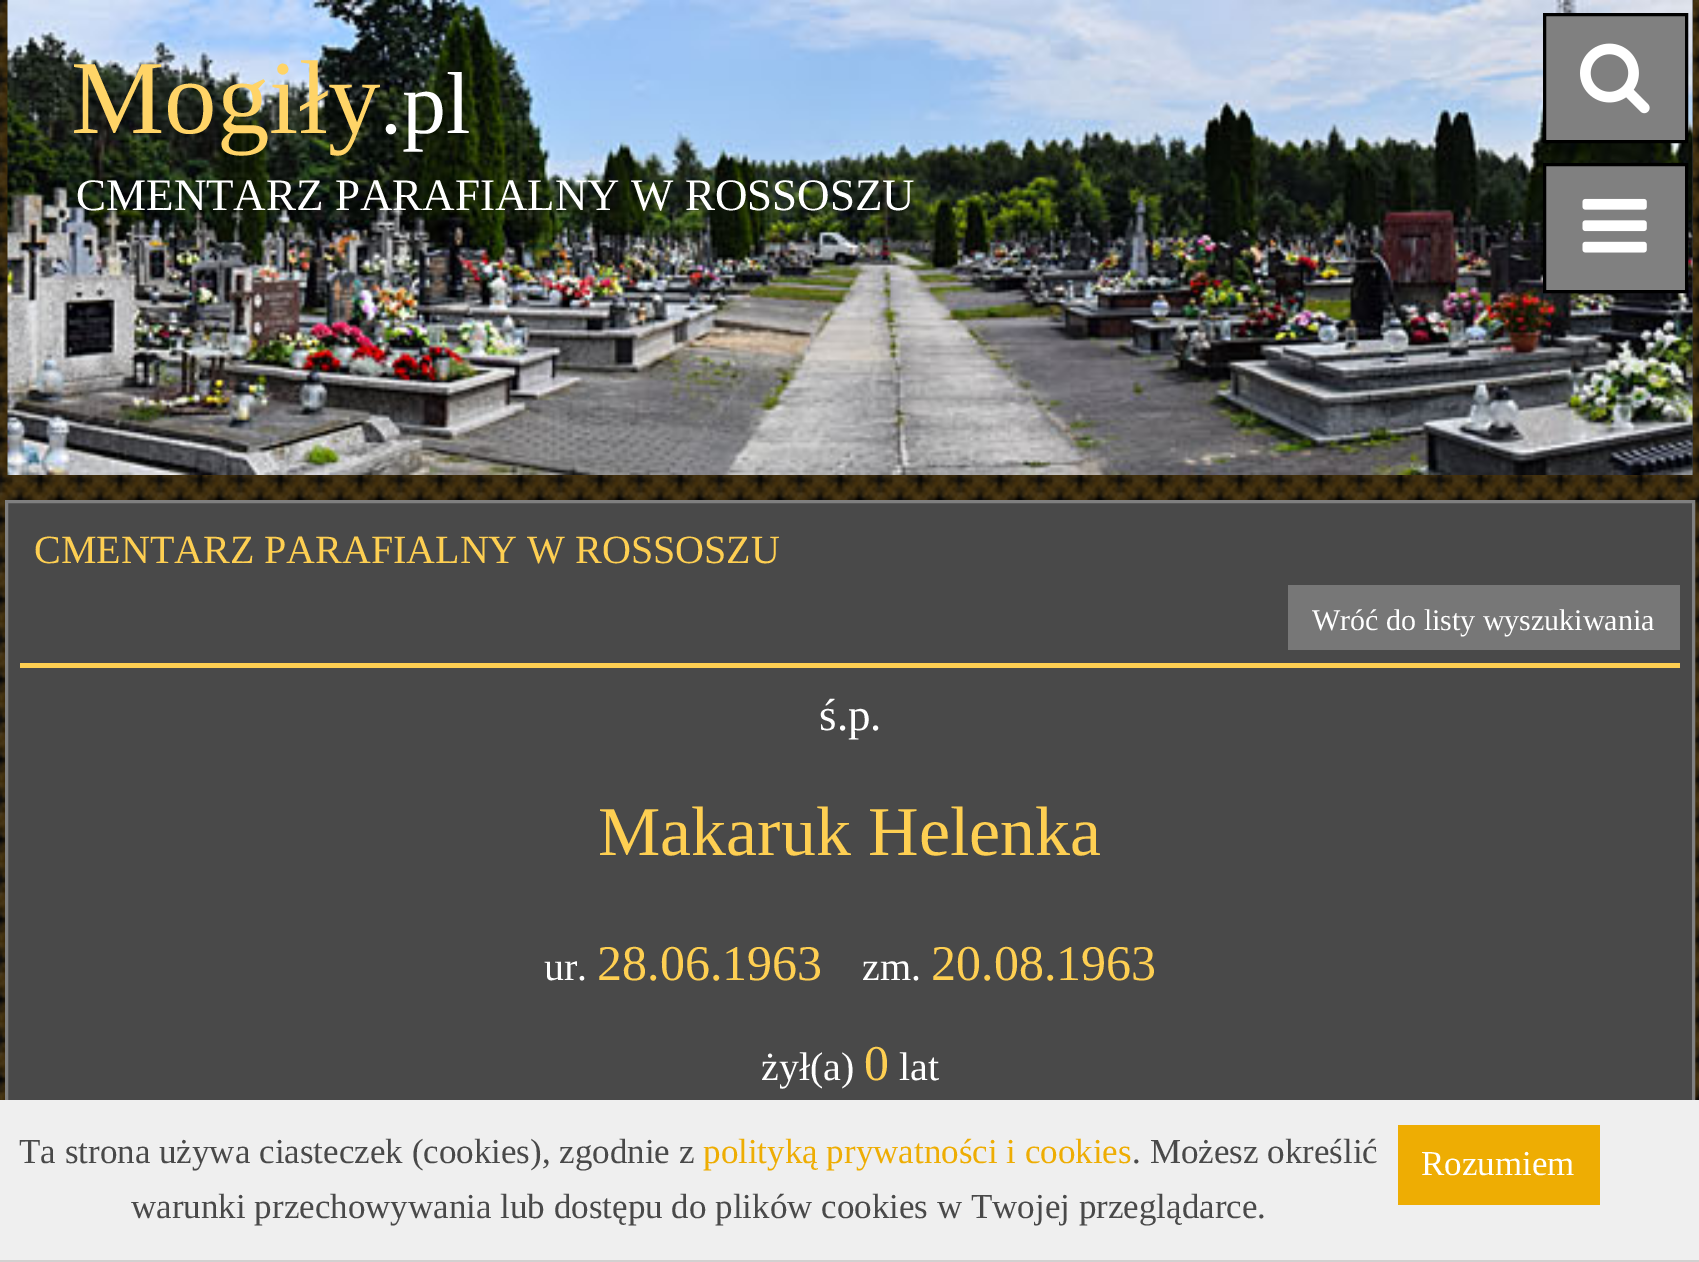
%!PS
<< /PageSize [1699 1262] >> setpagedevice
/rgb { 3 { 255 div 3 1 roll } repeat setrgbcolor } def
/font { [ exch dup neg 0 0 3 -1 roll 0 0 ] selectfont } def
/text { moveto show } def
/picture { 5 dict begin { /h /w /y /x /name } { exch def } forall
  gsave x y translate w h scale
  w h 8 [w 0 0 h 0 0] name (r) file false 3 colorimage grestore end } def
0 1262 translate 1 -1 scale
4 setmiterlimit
255 255 255 rgb
0 0 1699 1262 rectfill
(img_01.rgb) 0 0 1699 1100 picture
61 61 61 rgb
1692 0 1 475 rectfill
(img_02.rgb) 7 0 1686 475 picture
128 128 128 rgb
1544.5 14.5 moveto 142 0 rlineto 0 127 rlineto -142 0 rlineto closepath gsave fill grestore
0 0 0 rgb
3 setlinewidth
stroke
(img_03.rgb) 1580 43 70 71 picture
128 128 128 rgb
1544.5 164.5 moveto 142 0 rlineto 0 127 rlineto -142 0 rlineto closepath gsave fill grestore
0 0 0 rgb
stroke
(img_04.rgb) 1582 198 65 55 picture
73 73 73 rgb
8 503 1684 597 rectfill
128 128 128 rgb
6.5 501.5 1687 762 rectstroke
254 207 82 rgb
20 663 1660 5 rectfill
119 119 119 rgb
1288 585 392 65 rectfill
239 239 239 rgb
0 1100 1699 160 rectfill
211 208 208 rgb
0 1260 1699 2 rectfill
238 173 3 rgb
1398 1125 202 80 rectfill
/LiberationSerif-Regular 105 font
255 212 103 rgb
(Mogiły) 71 133 text
/LiberationSerif-Regular 88 font
255 255 255 rgb
(.pl) 380 133 text
/LiberationSerif-Regular 45 font
(CMENTARZ PARAFIALNY W ROSSOSZU) 76 210 text
/LiberationSerif-Regular 40 font
254 207 82 rgb
(CMENTARZ PARAFIALNY W ROSSOSZU) 34 563 text
/LiberationSerif-Regular 30 font
255 255 255 rgb
(Wróć do listy wyszukiwania) 1312 630 text
/LiberationSerif-Regular 45 font
(ś.p.) 819 730 text
/LiberationSerif-Regular 70 font
254 207 82 rgb
(Makaruk Helenka) 598 855 text
/LiberationSerif-Regular 40 font
255 255 255 rgb
(ur.) 544 980 text
/LiberationSerif-Regular 50 font
254 207 82 rgb
(28.06.1963) 597 980 text
/LiberationSerif-Regular 40 font
255 255 255 rgb
(zm.) 862 980 text
/LiberationSerif-Regular 50 font
254 207 82 rgb
(20.08.1963) 931 980 text
/LiberationSerif-Regular 40 font
255 255 255 rgb
(żył\(a\)) 761 1080 text
/LiberationSerif-Regular 50 font
254 207 82 rgb
(0) 864 1080 text
/LiberationSerif-Regular 40 font
255 255 255 rgb
(lat) 899 1080 text
/LiberationSerif-Regular 35 font
73 73 73 rgb
(Ta strona używa ciasteczek \(cookies\), zgodnie z) 19 1163 text
238 173 3 rgb
(polityką prywatności i cookies) 703 1163 text
73 73 73 rgb
(. Możesz określić) 1132 1163 text
(warunki przechowywania lub dostępu do plików cookies w Twojej przeglądarce.) 131 1218 text
255 255 255 rgb
(Rozumiem) 1421 1175 text
showpage
